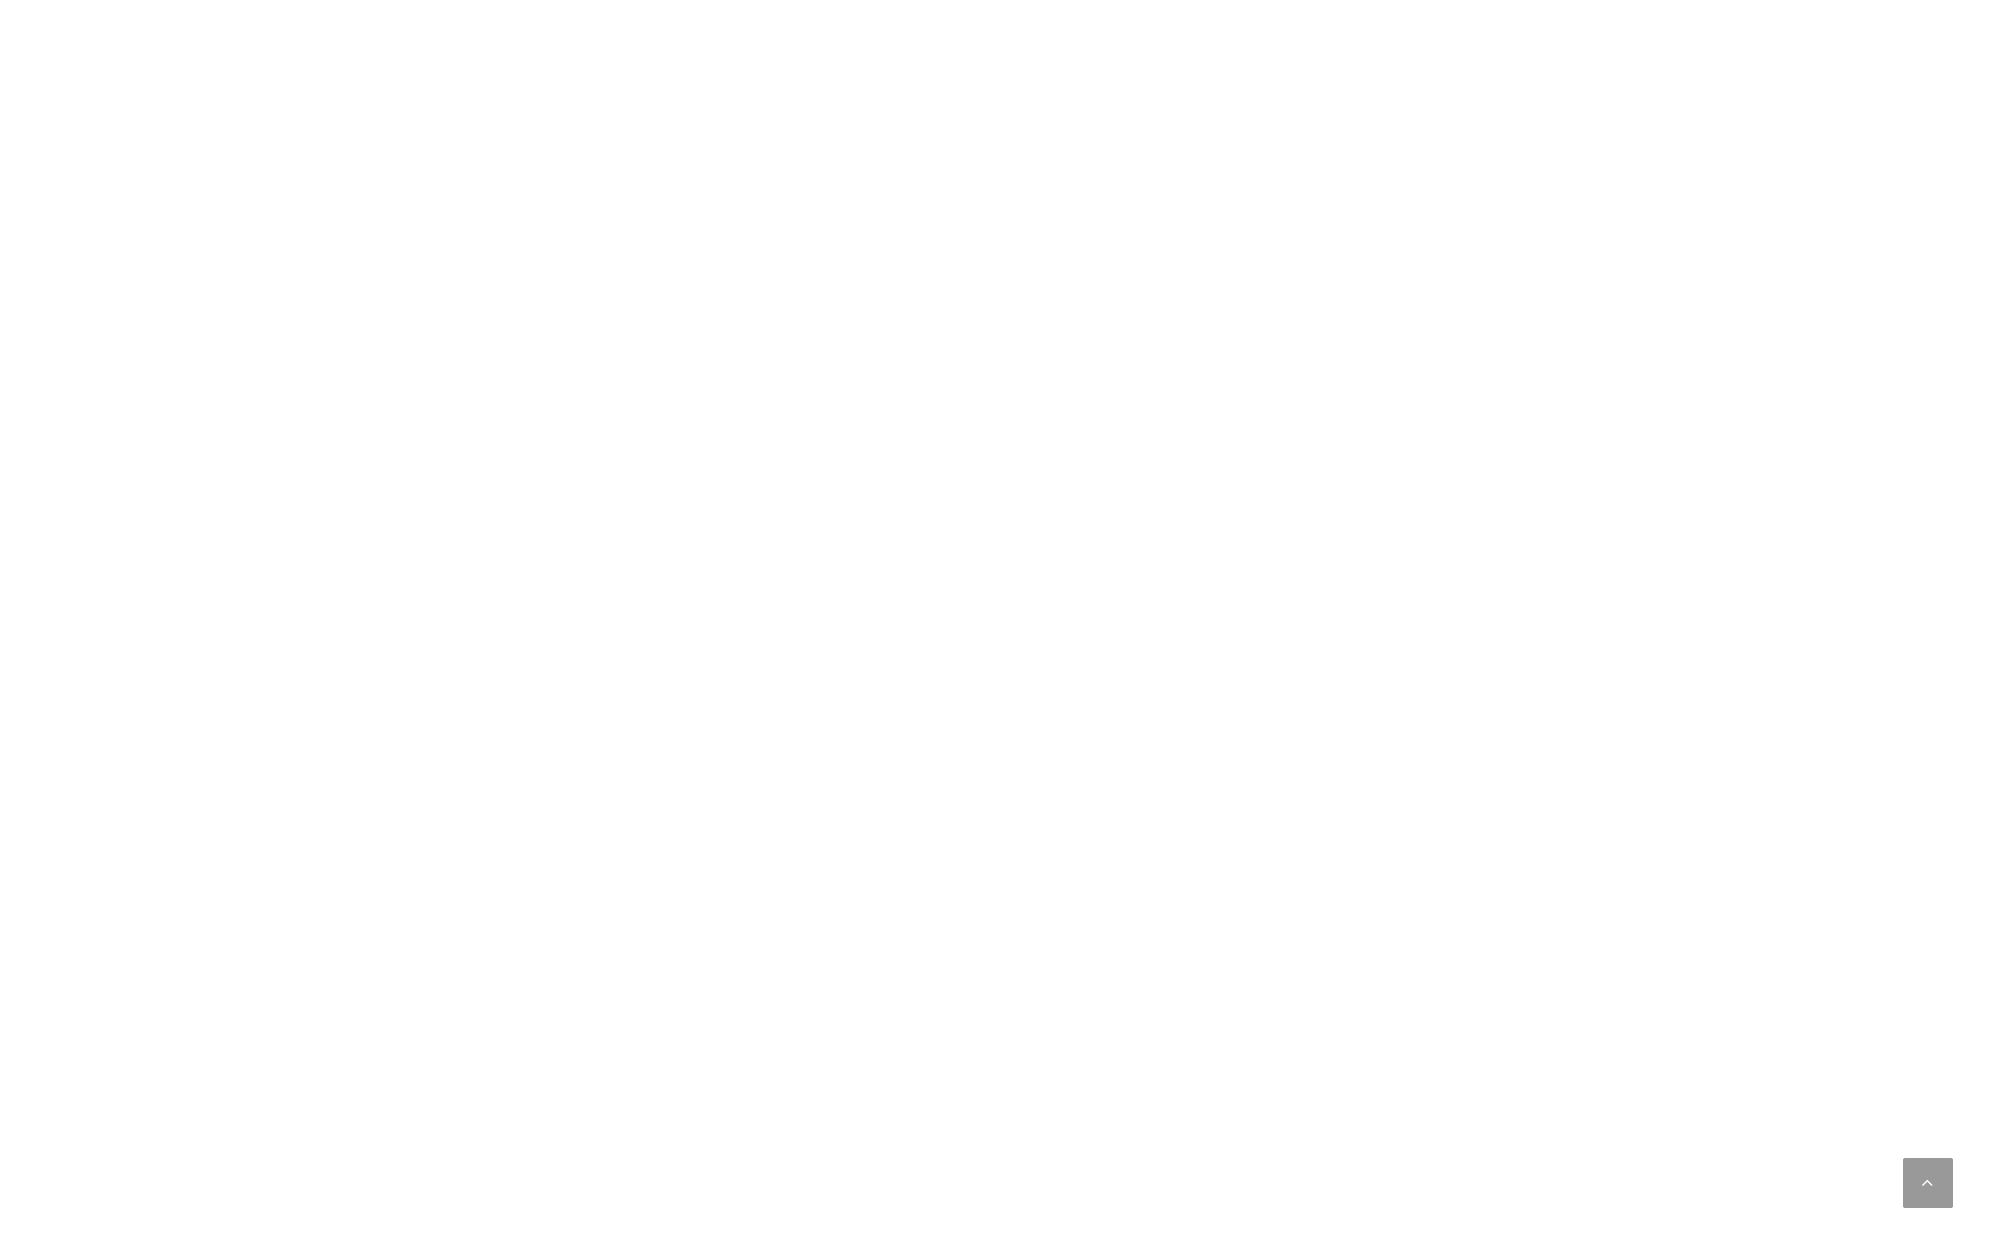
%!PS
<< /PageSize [1990 1245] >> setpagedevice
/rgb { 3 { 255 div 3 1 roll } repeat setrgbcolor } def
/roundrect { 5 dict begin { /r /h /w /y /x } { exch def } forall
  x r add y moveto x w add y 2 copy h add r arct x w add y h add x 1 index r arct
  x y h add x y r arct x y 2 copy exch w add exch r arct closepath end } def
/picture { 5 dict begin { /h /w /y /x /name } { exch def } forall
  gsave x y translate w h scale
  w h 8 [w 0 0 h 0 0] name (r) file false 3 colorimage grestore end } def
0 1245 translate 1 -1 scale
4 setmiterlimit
255 255 255 rgb
0 0 1990 1245 rectfill
153 153 153 rgb
1903 1158 50 50 2.5 roundrect fill
(img_01.rgb) 1922 1179 11 7 picture
showpage
